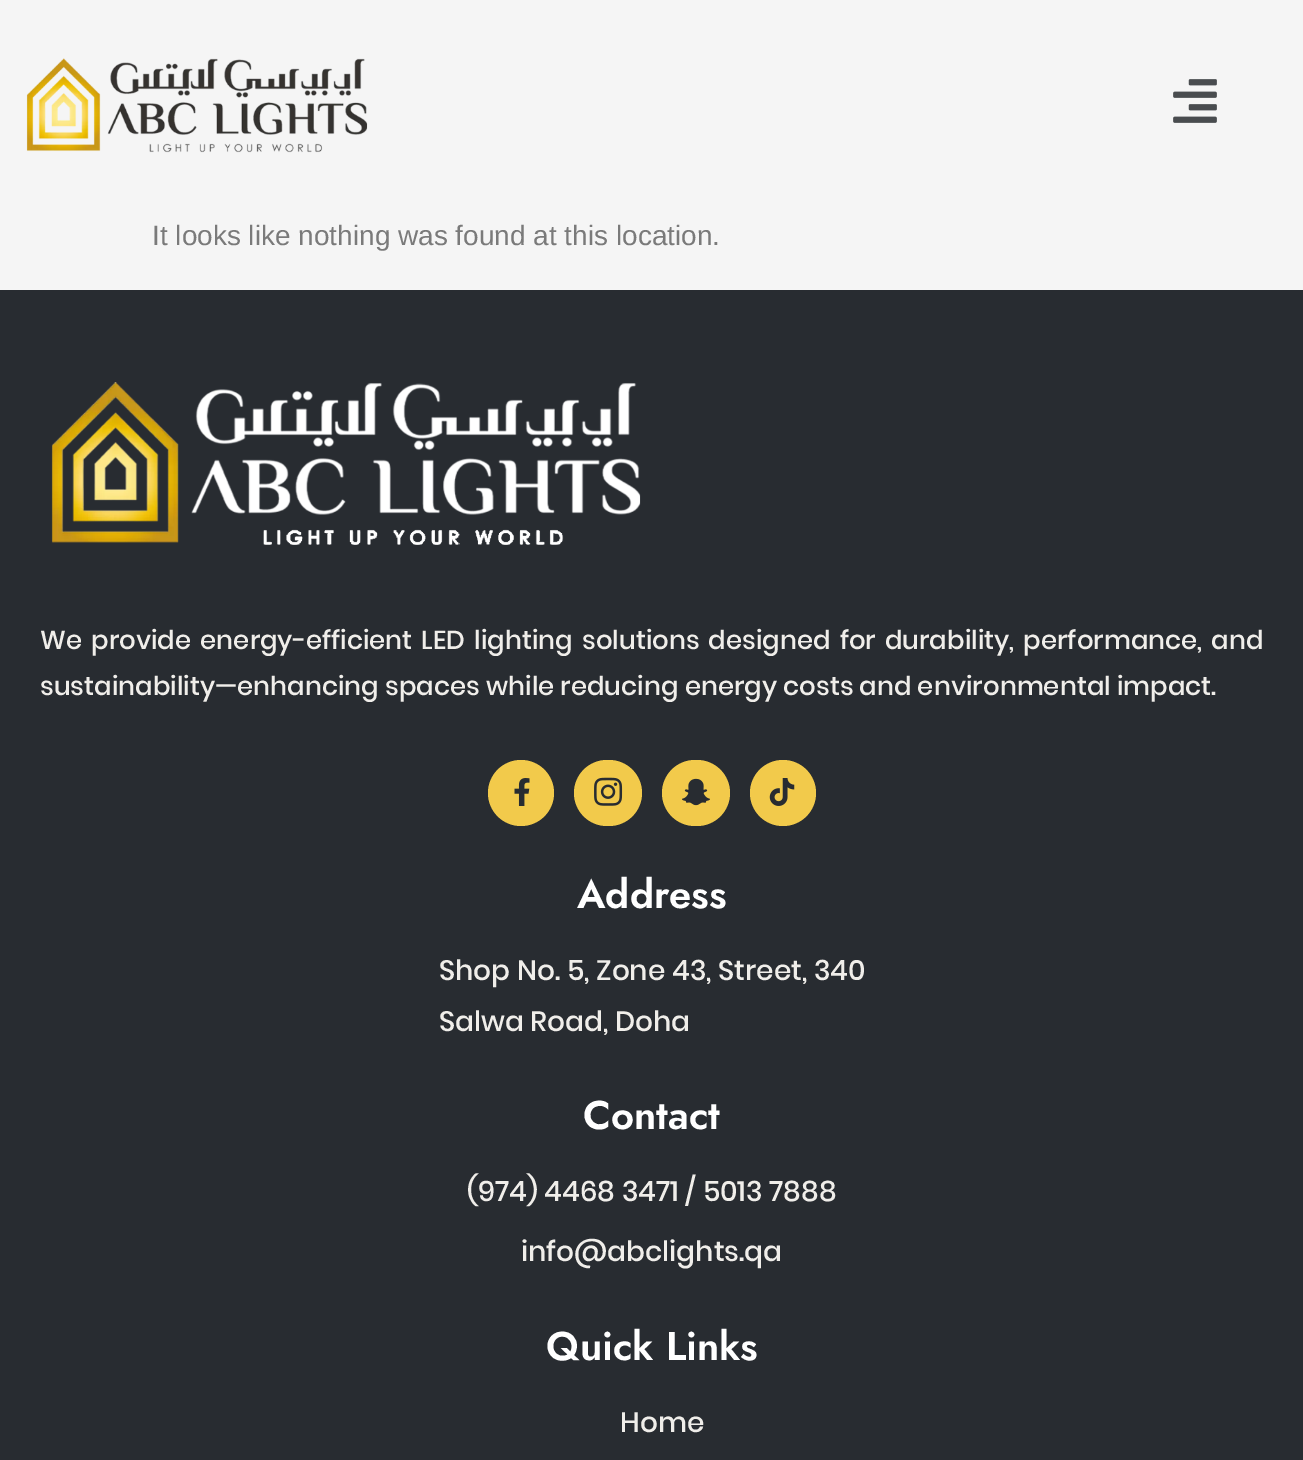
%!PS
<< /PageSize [1303 1460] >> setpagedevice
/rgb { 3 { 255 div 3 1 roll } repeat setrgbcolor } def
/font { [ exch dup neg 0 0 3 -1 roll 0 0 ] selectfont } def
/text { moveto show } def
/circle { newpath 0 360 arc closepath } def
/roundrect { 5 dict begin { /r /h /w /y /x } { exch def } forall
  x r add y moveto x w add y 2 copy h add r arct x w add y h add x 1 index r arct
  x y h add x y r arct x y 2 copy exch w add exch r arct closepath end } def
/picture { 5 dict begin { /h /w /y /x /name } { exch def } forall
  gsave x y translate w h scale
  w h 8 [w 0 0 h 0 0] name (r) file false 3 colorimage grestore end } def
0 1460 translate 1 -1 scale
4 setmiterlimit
245 245 245 rgb
0 0 1303 1460 rectfill
(img_01.rgb) 26 58 342 95 picture
(img_02.rgb) 1173 79 44 44 picture
40 44 49 rgb
0 290 1303 1170 rectfill
(img_03.rgb) 51 382 590 163 picture
242 202 75 rgb
521 793 33 circle fill
(img_04.rgb) 514 778 16 28 picture
574 760 68 66 33 roundrect fill
(img_05.rgb) 594 777 29 29 picture
662 760 68 66 33 roundrect fill
(img_06.rgb) 682 778 28 28 picture
783 793 33 circle fill
(img_07.rgb) 769 778 26 28 picture
/LiberationSans-Regular 28 font
122 122 122 rgb
(It looks like nothing was found at this location.) 152 245 text
/Poppins-Medium 26 font
240 238 234 rgb
40 649 moveto 2.9 0 32 (We provide energy-efficient LED lighting solutions designed for durability, performance, and) widthshow
(sustainability—enhancing spaces while reducing energy costs and environmental impact.) 40 695 text
/Jost-SemiBold 40 font
255 255 255 rgb
(Address) 577 908 text
/Poppins-Medium 28 font
240 238 234 rgb
(Shop No. 5, Zone 43, Street, 340) 439 980 text
(Salwa Road, Doha) 439 1031 text
/Jost-SemiBold 40 font
255 255 255 rgb
(Contact) 583 1129 text
/Poppins-Medium 28 font
240 238 234 rgb
(\(974\) 4468 3471 / 5013 7888) 467 1201 text
(info@abclights.qa) 521 1261 text
/Jost-SemiBold 40 font
255 255 255 rgb
(Quick Links) 546 1360 text
/Poppins-Medium 28 font
240 238 234 rgb
(Home) 620 1432 text
showpage
